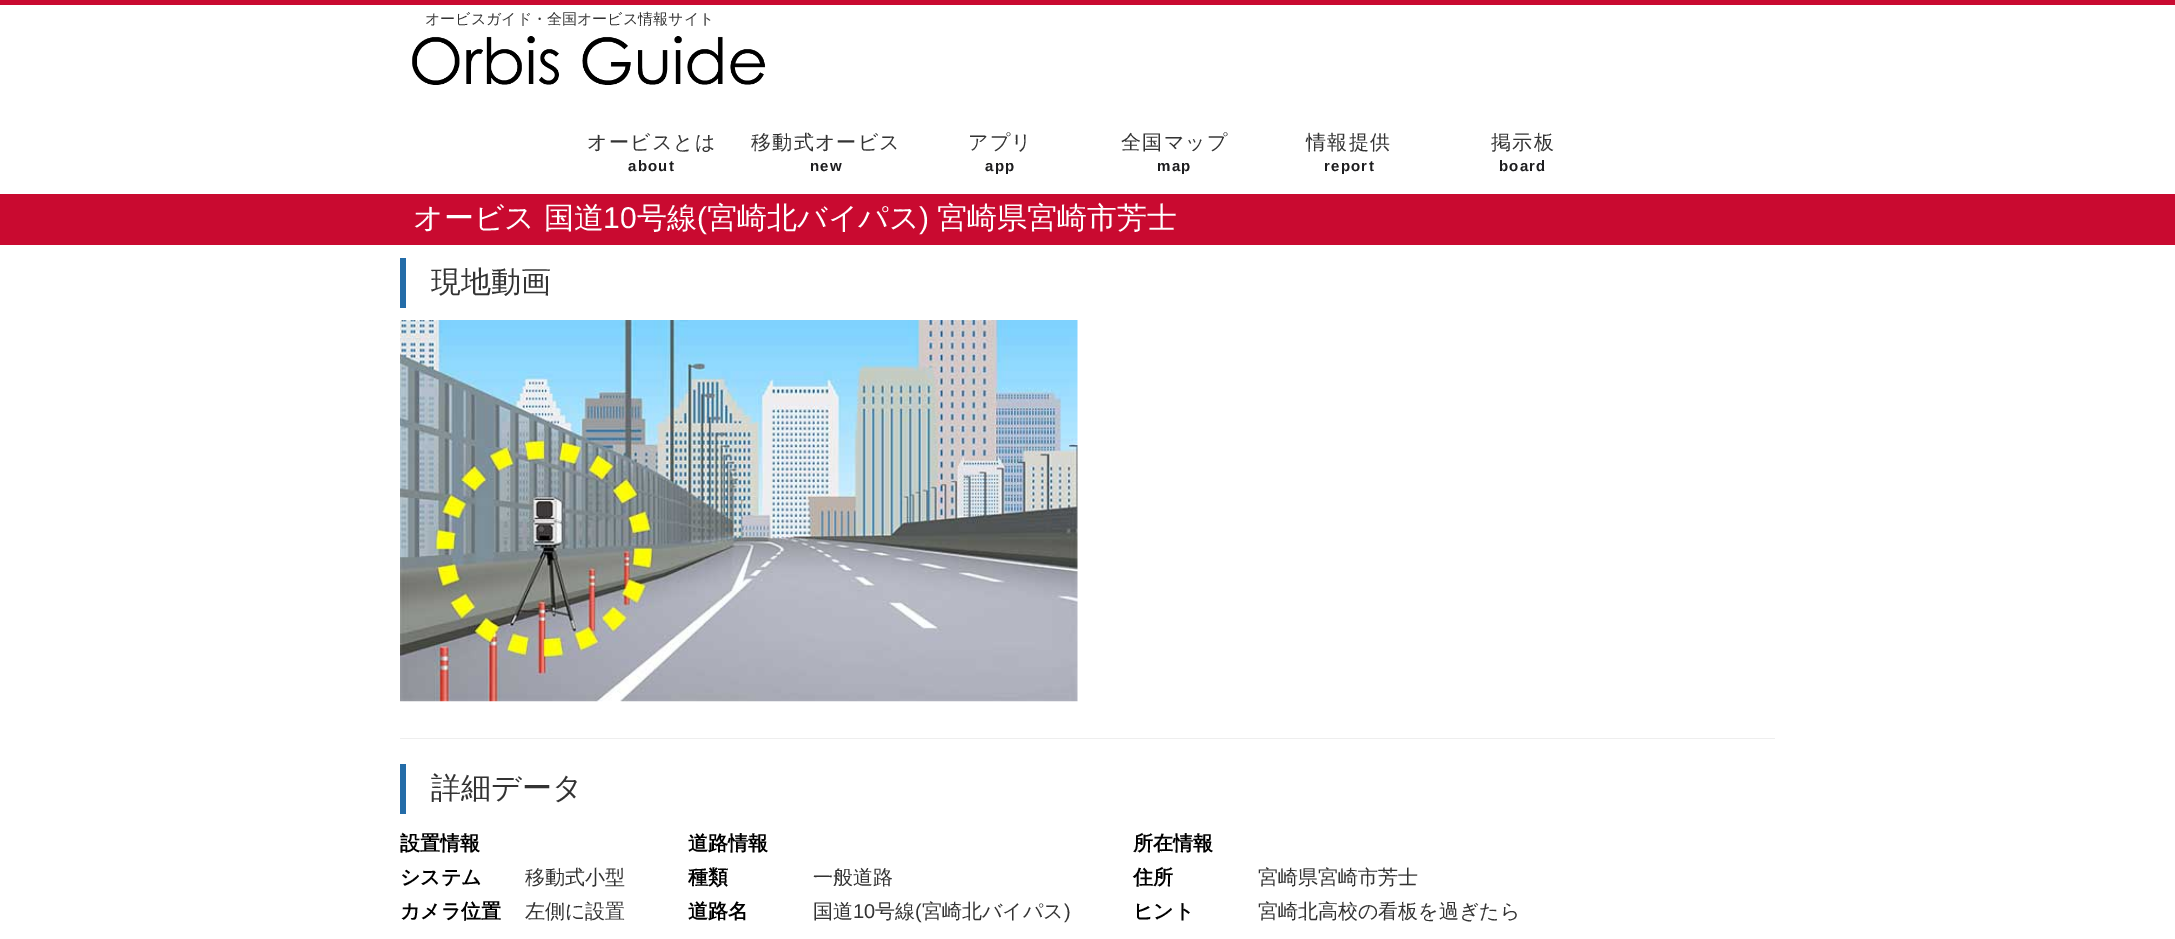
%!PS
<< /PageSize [2175 939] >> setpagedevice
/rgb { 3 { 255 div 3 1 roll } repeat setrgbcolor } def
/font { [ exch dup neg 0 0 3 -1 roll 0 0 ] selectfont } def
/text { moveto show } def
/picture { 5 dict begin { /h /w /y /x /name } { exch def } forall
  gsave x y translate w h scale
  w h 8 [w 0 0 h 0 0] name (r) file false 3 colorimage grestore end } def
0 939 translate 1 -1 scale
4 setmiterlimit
255 255 255 rgb
0 0 2175 939 rectfill
201 10 48 rgb
0 0 2175 5 rectfill
(img_01.rgb) 412 36 354 49 picture
0 194 2175 51 rectfill
35 108 168 rgb
400 258 6 50 rectfill
(img_02.rgb) 400 320 678 382 picture
238 238 238 rgb
400 738 1375 1 rectfill
35 108 168 rgb
400 764 6 50 rectfill
/WenQuanYiZenHei-Medium 15 font
51 51 51 rgb
(オービスガイド・全国オービス情報サイト) 425 24 text
/WenQuanYiZenHei-Medium 20 font
587 149 moveto 1.25 0 (オービスとは) ashow
/LiberationSans-Bold 15 font
29 29 31 rgb
628 171 moveto 1.25 0 (about) ashow
/WenQuanYiZenHei-Medium 20 font
51 51 51 rgb
751 149 moveto 1.25 0 (移動式オービス) ashow
/LiberationSans-Bold 15 font
29 29 31 rgb
810 171 moveto 1.25 0 (new) ashow
/WenQuanYiZenHei-Medium 20 font
51 51 51 rgb
968 149 moveto 1.25 0 (アプリ) ashow
/LiberationSans-Bold 15 font
29 29 31 rgb
985 171 moveto 1.25 0 (app) ashow
/WenQuanYiZenHei-Medium 20 font
51 51 51 rgb
1121 149 moveto 1.25 0 (全国マップ) ashow
/LiberationSans-Bold 15 font
29 29 31 rgb
1157 171 moveto 1.25 0 (map) ashow
/WenQuanYiZenHei-Medium 20 font
51 51 51 rgb
1306 149 moveto 1.25 0 (情報提供) ashow
/LiberationSans-Bold 15 font
29 29 31 rgb
1324 171 moveto 1.25 0 (report) ashow
/WenQuanYiZenHei-Medium 20 font
51 51 51 rgb
1491 149 moveto 1.25 0 (掲示板) ashow
/LiberationSans-Bold 15 font
29 29 31 rgb
1499 171 moveto 1.25 0 (board) ashow
/WenQuanYiZenHei-Medium 30 font
255 255 255 rgb
(オービス 国道) 413 228 text
/LiberationSans-Regular 30 font
(10) 603 228 text
/WenQuanYiZenHei-Medium 30 font
(号線) 637 228 text
/LiberationSans-Regular 30 font
(\() 697 228 text
/WenQuanYiZenHei-Medium 30 font
(宮崎北バイパス) 707 228 text
/LiberationSans-Regular 30 font
(\)) 919 228 text
/WenQuanYiZenHei-Medium 30 font
(宮崎県宮崎市芳士) 937 228 text
51 51 51 rgb
(現地動画) 431 292 text
(詳細データ) 431 798 text
/WenQuanYiZenHei-Bold 20 font
0 0 0 rgb
(設置情報) 400 850 text
(システム) 400 884 text
/WenQuanYiZenHei-Medium 20 font
51 51 51 rgb
(移動式小型) 525 884 text
/WenQuanYiZenHei-Bold 20 font
0 0 0 rgb
(カメラ位置) 400 918 text
/WenQuanYiZenHei-Medium 20 font
51 51 51 rgb
(左側に設置) 525 918 text
/WenQuanYiZenHei-Bold 20 font
0 0 0 rgb
(道路情報) 688 850 text
(種類) 688 884 text
/WenQuanYiZenHei-Medium 20 font
51 51 51 rgb
(一般道路) 813 884 text
/WenQuanYiZenHei-Bold 20 font
0 0 0 rgb
(道路名) 688 918 text
/WenQuanYiZenHei-Medium 20 font
51 51 51 rgb
(国道) 813 918 text
/LiberationSans-Regular 20 font
(10) 853 918 text
/WenQuanYiZenHei-Medium 20 font
(号線) 875 918 text
/LiberationSans-Regular 20 font
(\() 915 918 text
/WenQuanYiZenHei-Medium 20 font
(宮崎北バイパス) 922 918 text
/LiberationSans-Regular 20 font
(\)) 1064 918 text
/WenQuanYiZenHei-Bold 20 font
0 0 0 rgb
(所在情報) 1133 850 text
(住所) 1133 884 text
/WenQuanYiZenHei-Medium 20 font
51 51 51 rgb
(宮崎県宮崎市芳士) 1258 884 text
/WenQuanYiZenHei-Bold 20 font
0 0 0 rgb
(ヒント) 1133 918 text
/WenQuanYiZenHei-Medium 20 font
51 51 51 rgb
(宮崎北高校の看板を過ぎたら) 1258 918 text
showpage
